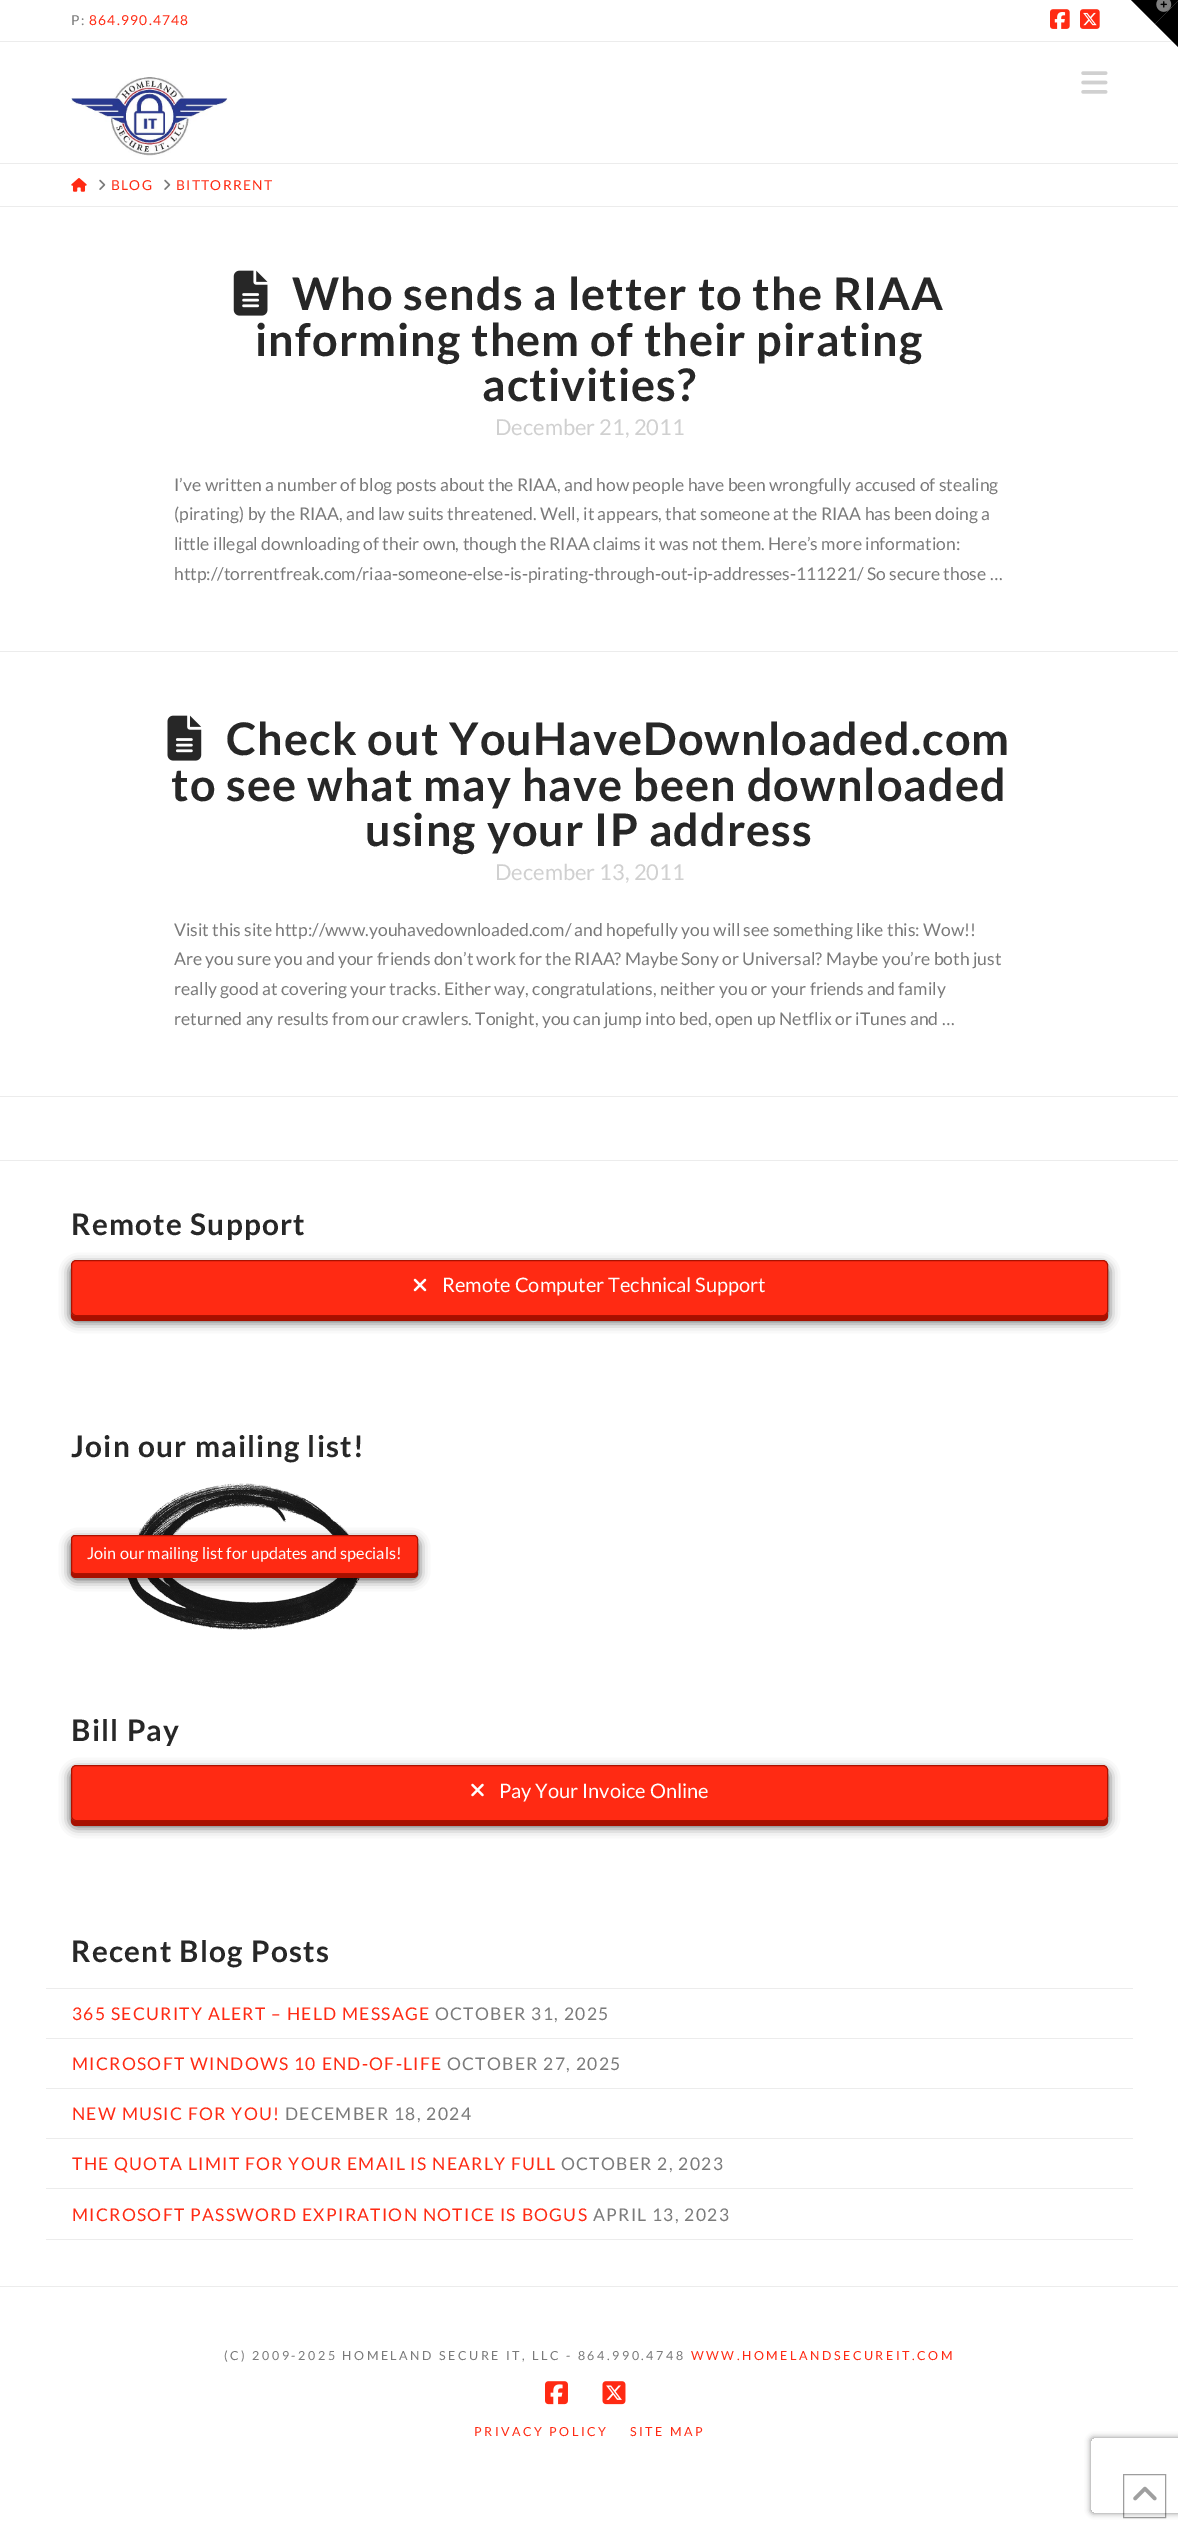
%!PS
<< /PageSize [1178 2529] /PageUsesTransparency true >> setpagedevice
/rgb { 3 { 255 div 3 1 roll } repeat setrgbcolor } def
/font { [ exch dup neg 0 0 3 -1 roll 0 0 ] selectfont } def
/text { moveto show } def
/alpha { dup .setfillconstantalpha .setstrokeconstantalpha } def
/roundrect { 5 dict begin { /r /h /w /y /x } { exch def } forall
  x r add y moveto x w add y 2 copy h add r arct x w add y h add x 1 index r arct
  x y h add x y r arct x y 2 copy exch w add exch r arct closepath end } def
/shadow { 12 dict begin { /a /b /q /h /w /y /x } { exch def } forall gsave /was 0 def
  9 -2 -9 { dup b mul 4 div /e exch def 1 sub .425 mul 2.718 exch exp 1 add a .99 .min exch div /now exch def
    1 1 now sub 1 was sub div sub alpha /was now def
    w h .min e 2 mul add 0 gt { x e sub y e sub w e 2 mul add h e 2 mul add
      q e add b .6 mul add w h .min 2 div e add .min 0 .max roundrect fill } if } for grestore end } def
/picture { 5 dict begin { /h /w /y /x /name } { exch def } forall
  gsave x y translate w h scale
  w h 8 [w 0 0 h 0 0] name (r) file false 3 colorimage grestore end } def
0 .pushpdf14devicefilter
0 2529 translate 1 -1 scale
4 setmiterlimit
255 255 255 rgb
0 0 1178 2529 rectfill
236 236 236 rgb
0 41 1178 1 rectfill
(img_01.rgb) 1050 9 20 20 picture
(img_02.rgb) 1080 9 20 20 picture
0 163 1178 1 rectfill
(img_03.rgb) 71 77 157 79 picture
(img_04.rgb) 1081 71 27 23 picture
0 206 1178 1 rectfill
(img_05.rgb) 71 178 16 14 picture
(img_06.rgb) 99 179 7 11 picture
(img_06.rgb) 164 179 7 11 picture
(img_07.rgb) 233 270 35 46 picture
0 651 1178 1 rectfill
0 1096 1178 1 rectfill
(img_08.rgb) 167 715 35 46 picture
0 1160 1178 1 rectfill
0 0 0 rgb
71 1265 1037 56 5 5.5 0.75 shadow
167 16 0 rgb
71 1268 moveto 0 48 rlineto 0 3 2 5 5 5 rcurveto 1027 0 rlineto 3 0 5 -2 5 -5 rcurveto 0 -46 rlineto 0 -2 rlineto 0 43 rlineto 0 3 -3 5 -6 5 rcurveto -1026 0 rlineto -3 0 -5 -2 -5 -5 rcurveto closepath fill
255 42 19 rgb
71.5 1260.5 1036 55 4.5 roundrect gsave fill grestore
172 17 0 rgb
stroke
(img_09.rgb) 413 1278 14 14 picture
(img_10.rgb) 137 1483 212 52 picture
(img_11.rgb) 127 1578 233 52 picture
0 0 0 rgb
71 1540 347 39 4 5.5 0.75 shadow
167 16 0 rgb
71 1542 moveto 0 32 rlineto 0 2 2 4 4 4 rcurveto 339 0 rlineto 2 0 4 -2 4 -4 rcurveto 0 -31 rlineto 0 -2 rlineto 0 29 rlineto 0 2 -2 4 -4 4 rcurveto -339 0 rlineto -2 0 -4 -2 -4 -4 rcurveto closepath fill
255 42 19 rgb
71.5 1535.5 346 38 3.5 roundrect gsave fill grestore
172 17 0 rgb
stroke
0 0 0 rgb
71 1770 1037 56 5 5.5 0.75 shadow
167 16 0 rgb
71 1773 moveto 0 48 rlineto 0 3 2 5 5 5 rcurveto 1027 0 rlineto 3 0 5 -2 5 -5 rcurveto 0 -46 rlineto 0 -2 rlineto 0 43 rlineto 0 3 -3 5 -6 5 rcurveto -1026 0 rlineto -3 0 -5 -2 -5 -5 rcurveto closepath fill
255 42 19 rgb
71.5 1765.5 1036 55 4.5 roundrect gsave fill grestore
172 17 0 rgb
stroke
(img_12.rgb) 471 1783 13 14 picture
236 236 236 rgb
46 1988 1087 1 rectfill
46 2038 1087 1 rectfill
46 2088 1087 1 rectfill
46 2138 1087 1 rectfill
46 2188 1087 1 rectfill
46 2239 1087 1 rectfill
0 2286 1178 1 rectfill
(img_13.rgb) 545 2381 23 24 picture
(img_14.rgb) 602 2381 24 24 picture
0 0 0 rgb
1131 0 moveto 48 0 rlineto -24 24 rlineto closepath fill
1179 0 moveto 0 48 rlineto -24 -24 rlineto closepath fill
(img_15.rgb) 1156 0 16 12 picture
gsave
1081 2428 moveto 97 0 rlineto 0 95 rlineto -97 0 rlineto closepath 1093.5 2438 moveto 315 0 rlineto 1.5 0 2.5 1 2.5 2.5 rcurveto 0 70 rlineto 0 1.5 -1 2.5 -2.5 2.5 rcurveto -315 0 rlineto -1.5 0 -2.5 -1 -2.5 -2.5 rcurveto 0 -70 rlineto 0 -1.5 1 -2.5 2.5 -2.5 rcurveto closepath eoclip newpath
128 128 128 rgb
1091 2438 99 75 2.5 3 1 shadow
grestore
0.38 alpha
1123.5 2474.5 42 43 rectstroke
1 alpha
(img_16.rgb) 1133 2486 24 15 picture
/Lato-Regular 13.75 font
122 122 122 rgb
71 25 moveto 1.25 0 (P:) ashow
255 42 19 rgb
89 25 moveto 1.25 0 (864.990.4748) ashow
111 190 moveto 1.25 0 (BLOG) ashow
176 190 moveto 1.25 0 (BITTORRENT) ashow
/Lato-Bold 45 font
39 39 39 rgb
292 310 moveto 1.1 0 (Who sends a letter to the RIAA) ashow
255 356 moveto 1.1 0 (informing them of their pirating) ashow
482 401 moveto 1.1 0 (activities?) ashow
/Lato-Regular 21.9 font
208 208 208 rgb
(December 21, 2011) 495 435 text
/Lato-Regular 17.5 font
122 122 122 rgb
(I’ve written a number of blog posts about the RIAA, and how people have been wrongfully accused of stealing) 174 491 text
(\(pirating\) by the RIAA, and law suits threatened. Well, it appears, that someone at the RIAA has been doing a) 174 520 text
(little illegal downloading of their own, though the RIAA claims it was not them. Here’s more information:) 174 550 text
(http://torrentfreak.com/riaa-someone-else-is-pirating-through-out-ip-addresses-111221/ So secure those …) 174 580 text
/Lato-Bold 45 font
39 39 39 rgb
226 755 moveto 1.1 0 (Check out YouHaveDownloaded.com) ashow
171 801 moveto 1.1 0 (to see what may have been downloaded) ashow
365 846 moveto 1.1 0 (using your IP address) ashow
/Lato-Regular 21.9 font
208 208 208 rgb
(December 13, 2011) 495 880 text
/Lato-Regular 17.5 font
122 122 122 rgb
(Visit this site http://www.youhavedownloaded.com/ and hopefully you will see something like this: Wow!!) 174 936 text
(Are you sure you and your friends don’t work for the RIAA? Maybe Sony or Universal? Maybe you’re both just) 174 965 text
(really good at covering your tracks. Either way, congratulations, neither you or your friends and family) 174 995 text
(returned any results from our crawlers. Tonight, you can jump into bed, open up Netflix or iTunes and …) 174 1025 text
/Lato-Bold 29.75 font
39 39 39 rgb
71 1235 moveto 1.25 0 (Remote Support) ashow
/Lato-Regular 20 font
255 255 255 rgb
(Remote Computer Technical Support) 442 1292 text
/Lato-Bold 29.75 font
39 39 39 rgb
71 1457 moveto 1.25 0 (Join our mailing list!) ashow
/Lato-Regular 16.25 font
255 255 255 rgb
(Join our mailing list for updates and specials!) 87 1559 text
/Lato-Bold 29.75 font
39 39 39 rgb
71 1741 moveto 1.25 0 (Bill Pay) ashow
/Lato-Regular 20 font
255 255 255 rgb
(Pay Your Invoice Online) 499 1798 text
/Lato-Bold 29.75 font
39 39 39 rgb
71 1962 moveto 1.25 0 (Recent Blog Posts) ashow
/Lato-Regular 17.5 font
255 42 19 rgb
72 2020 moveto 1.25 0 (365 SECURITY ALERT – HELD MESSAGE) ashow
122 122 122 rgb
435 2020 moveto 1.25 0 (OCTOBER 31, 2025) ashow
255 42 19 rgb
72 2070 moveto 1.25 0 (MICROSOFT WINDOWS 10 END-OF-LIFE) ashow
122 122 122 rgb
447 2070 moveto 1.25 0 (OCTOBER 27, 2025) ashow
255 42 19 rgb
72 2120 moveto 1.25 0 (NEW MUSIC FOR YOU!) ashow
122 122 122 rgb
285 2120 moveto 1.25 0 (DECEMBER 18, 2024) ashow
255 42 19 rgb
72 2170 moveto 1.25 0 (THE QUOTA LIMIT FOR YOUR EMAIL IS NEARLY FULL) ashow
122 122 122 rgb
561 2170 moveto 1.25 0 (OCTOBER 2, 2023) ashow
255 42 19 rgb
72 2221 moveto 1.25 0 (MICROSOFT PASSWORD EXPIRATION NOTICE IS BOGUS) ashow
122 122 122 rgb
593 2221 moveto 1.25 0 (APRIL 13, 2023) ashow
/Lato-Regular 12.5 font
224 2360 moveto 2.5 0 (\(C\) 2009-2025 HOMELAND SECURE IT, LLC - 864.990.4748) ashow
255 42 19 rgb
691 2360 moveto 2.5 0 (WWW.HOMELANDSECUREIT.COM) ashow
474 2436 moveto 2.5 0 (PRIVACY POLICY) ashow
630 2436 moveto 2.5 0 (SITE MAP) ashow
.poppdf14devicefilter showpage
